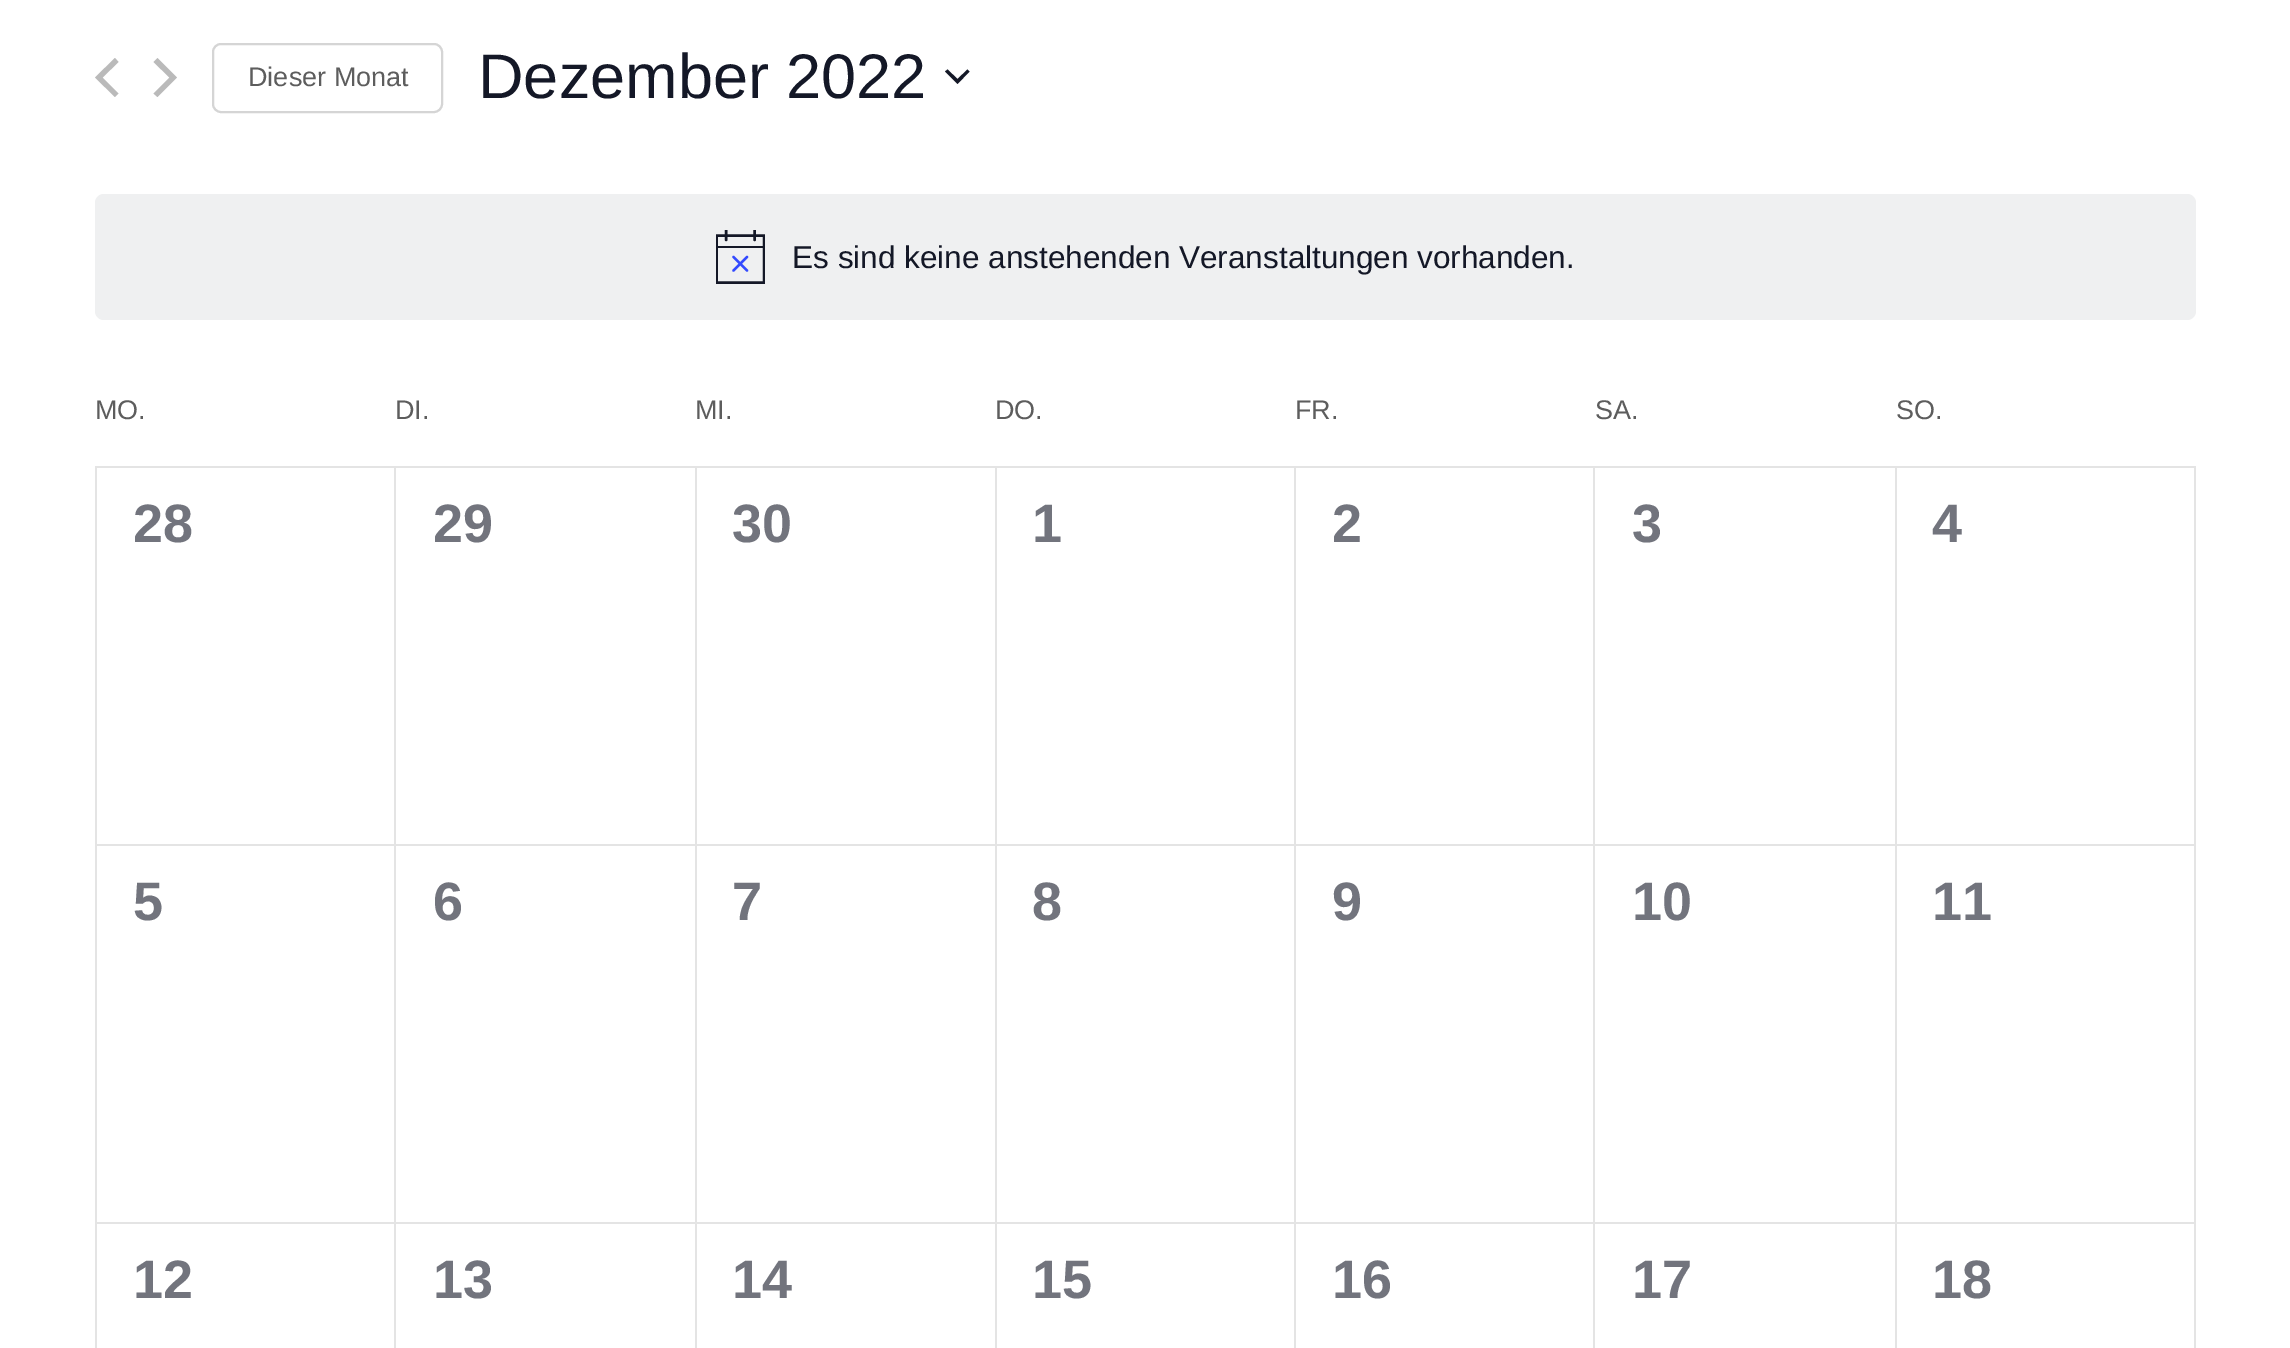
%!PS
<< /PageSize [2290 1348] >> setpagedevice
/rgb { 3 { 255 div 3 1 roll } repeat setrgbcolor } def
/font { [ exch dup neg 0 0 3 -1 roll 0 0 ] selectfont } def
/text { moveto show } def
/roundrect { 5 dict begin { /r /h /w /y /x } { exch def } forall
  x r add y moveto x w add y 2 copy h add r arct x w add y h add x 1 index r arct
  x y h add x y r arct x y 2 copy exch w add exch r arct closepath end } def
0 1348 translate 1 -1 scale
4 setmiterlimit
255 255 255 rgb
0 0 2290 1348 rectfill
186 186 186 rgb
118.5 93.5 moveto -3.5 3.5 rlineto -20 -19.5 rlineto 20 -19.5 rlineto 3.5 4 rlineto -16 15.5 rlineto closepath fill
153.5 62 moveto 4 -4 rlineto 19.5 19.5 rlineto -19.5 19.5 rlineto -4 -3.5 rlineto 16 -16 rlineto closepath fill
213 213 213 rgb
2 setlinewidth
213 44 229 68 8 roundrect stroke
20 24 39 rgb
947.5 69.5 moveto 10 9.5 rlineto 10 -9.5 rlineto 2 2 rlineto -12 12.5 rlineto -12.5 -12.5 rlineto closepath eofill
239 240 241 rgb
95 194 2101 126 9 roundrect fill
gsave
716 230 49 54 rectclip
20 24 39 rgb
2.4 setlinewidth
716.5 235.5 moveto 47.5 0 rlineto 0 47 rlineto -47.5 0 rlineto closepath stroke
grestore
51 74 255 rgb
2.4 setlinewidth
1 setlinecap
733.5 257 moveto 13.5 13.5 rlineto 747 257 moveto -13.5 13.5 rlineto stroke
gsave
716 230 49 54 rectclip
20 24 39 rgb
726 230.5 moveto 0 9.5 rlineto 754.5 230.5 moveto 0 9.5 rlineto stroke
grestore
20 24 39 rgb
716 246 49 2 rectfill
228 228 228 rgb
95 466 2101 2 rectfill
95 468 2 880 rectfill
394 468 2 880 rectfill
97 844 299 2 rectfill
695 468 2 880 rectfill
396 844 302 2 rectfill
995 468 2 880 rectfill
698 844 299 2 rectfill
1294 468 2 880 rectfill
997 844 299 2 rectfill
1593 468 2 880 rectfill
1296 844 299 2 rectfill
1895 468 2 880 rectfill
1595 844 302 2 rectfill
2194 468 2 880 rectfill
1897 844 299 2 rectfill
97 1222 2099 2 rectfill
/LiberationSans-Regular 27 font
93 93 93 rgb
(Dieser Monat) 248 86 text
/LiberationSans-Regular 63 font
20 24 39 rgb
(Dezember 2022) 478 98 text
/LiberationSans-Regular 31.5 font
(Es sind keine anstehenden Veranstaltungen vorhanden.) 792 268 text
/LiberationSans-Regular 27 font
93 93 93 rgb
(MO.) 95 419 text
(DI.) 395 419 text
(MI.) 695 419 text
(DO.) 995 419 text
(FR.) 1295 419 text
(SA.) 1595 419 text
(SO.) 1896 419 text
/LiberationSans-Bold 54 font
114 116 125 rgb
(28) 133 542 text
(29) 433 542 text
(30) 732 542 text
(1) 1032 542 text
(2) 1332 542 text
(3) 1632 542 text
(4) 1932 542 text
(5) 133 920 text
(6) 433 920 text
(7) 732 920 text
(8) 1032 920 text
(9) 1332 920 text
(10) 1632 920 text
(11) 1932 920 text
(12) 133 1298 text
(13) 433 1298 text
(14) 732 1298 text
(15) 1032 1298 text
(16) 1332 1298 text
(17) 1632 1298 text
(18) 1932 1298 text
showpage
